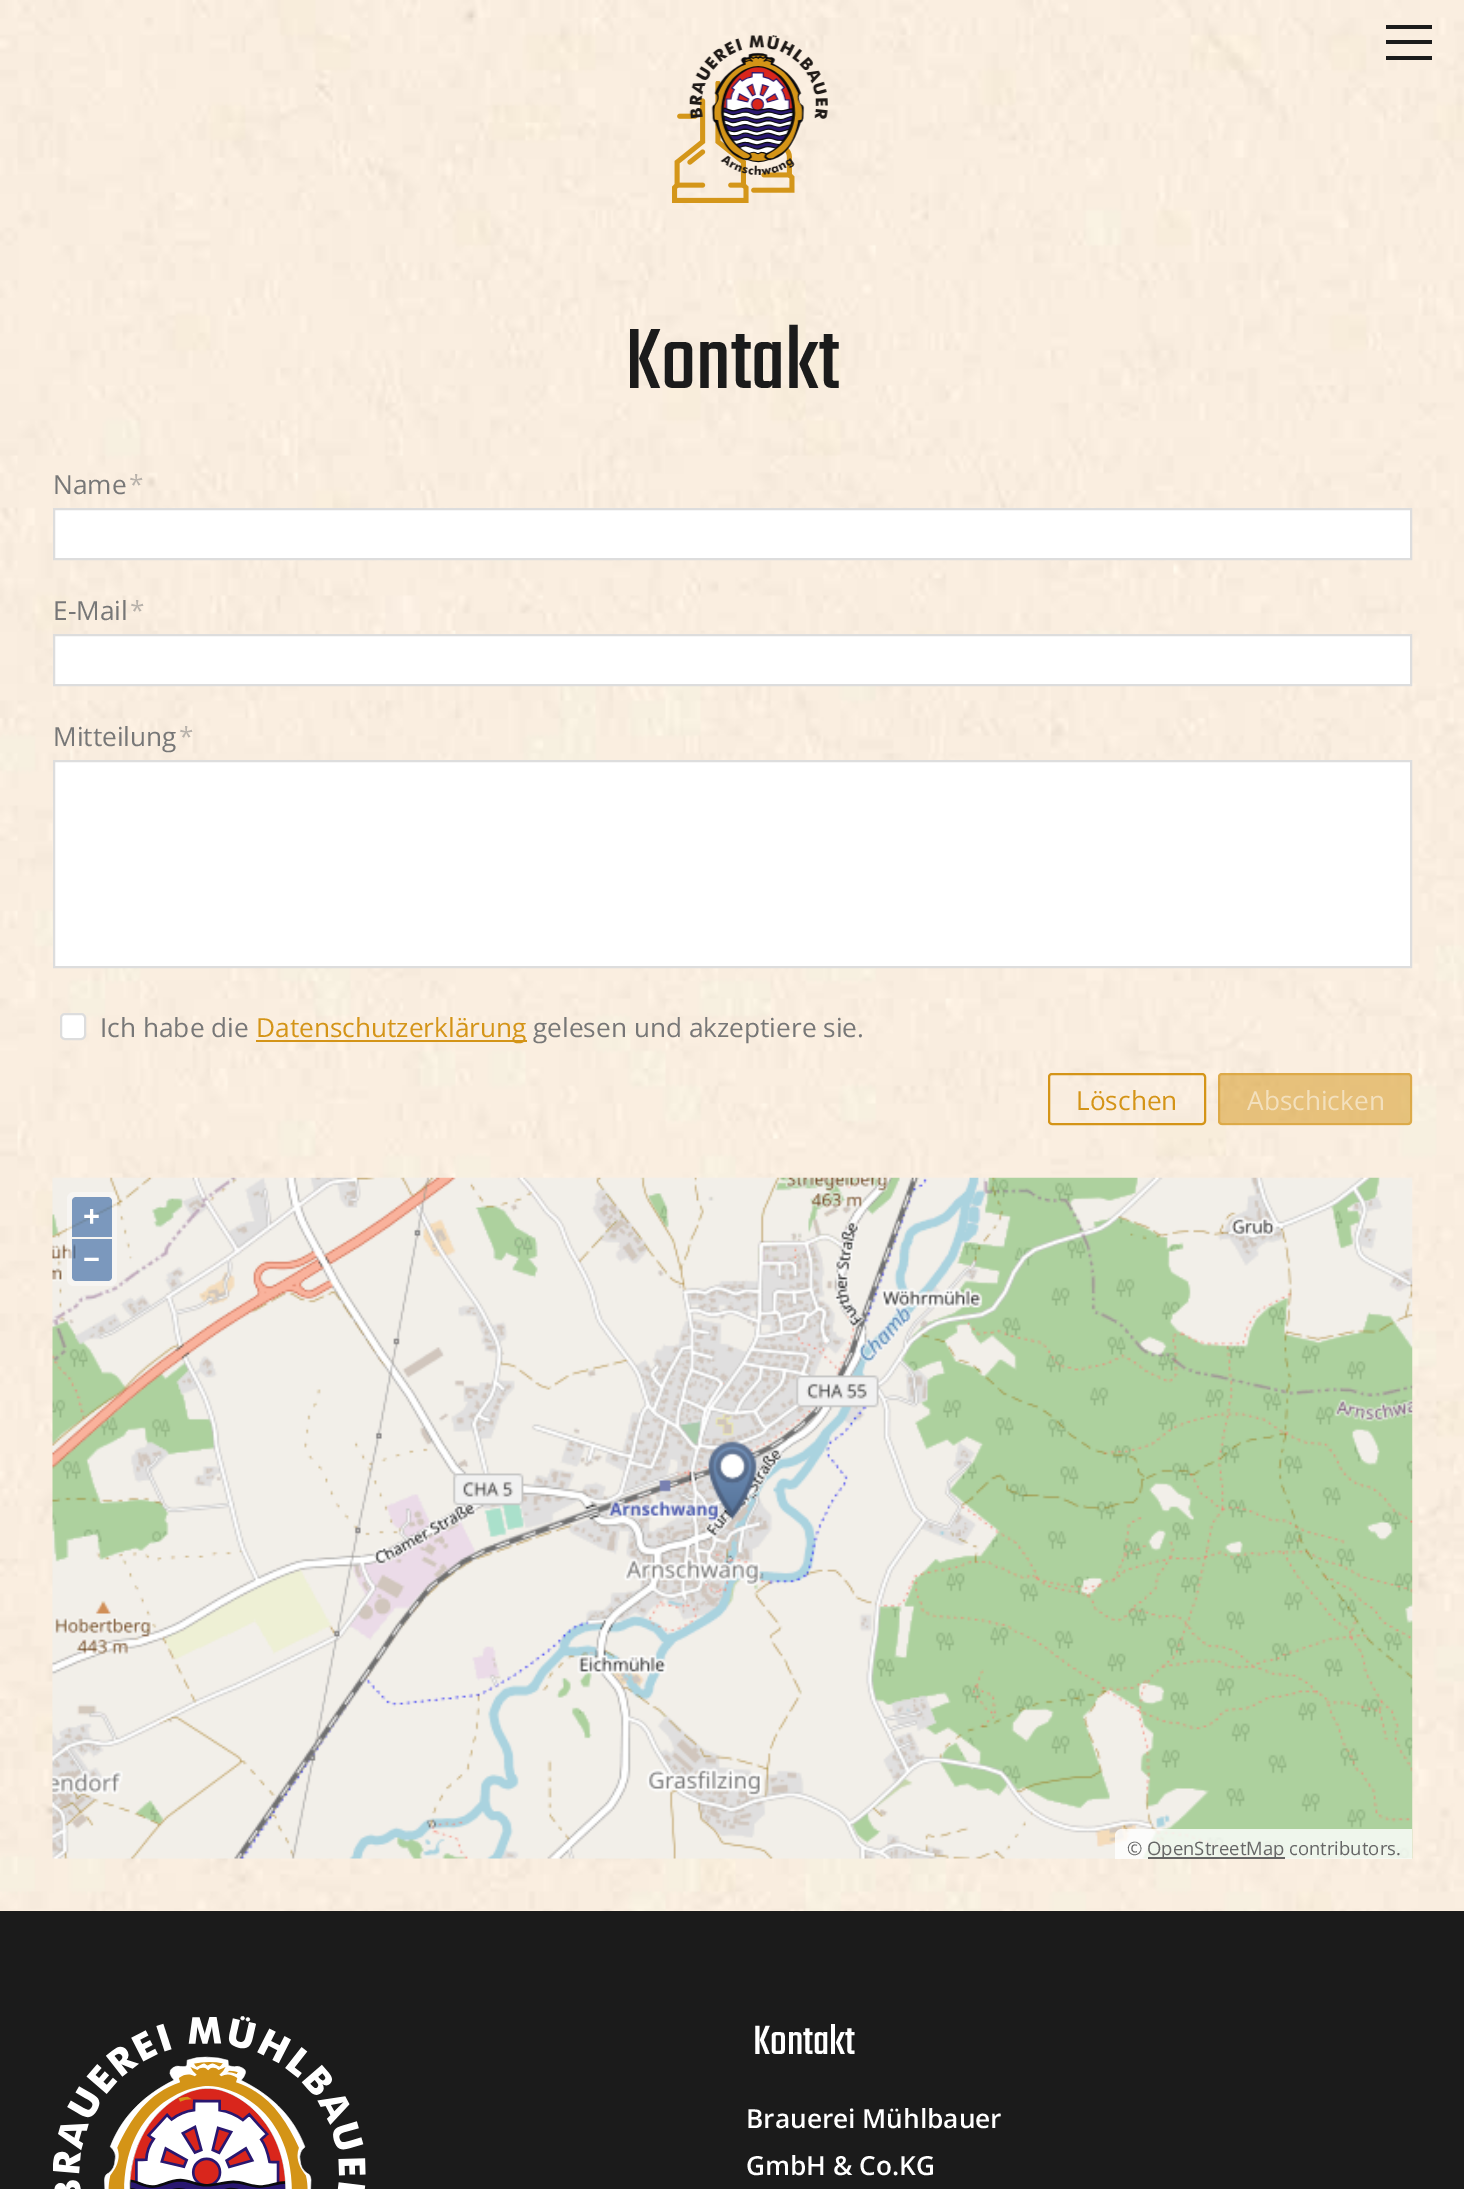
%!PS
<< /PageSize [1464 2189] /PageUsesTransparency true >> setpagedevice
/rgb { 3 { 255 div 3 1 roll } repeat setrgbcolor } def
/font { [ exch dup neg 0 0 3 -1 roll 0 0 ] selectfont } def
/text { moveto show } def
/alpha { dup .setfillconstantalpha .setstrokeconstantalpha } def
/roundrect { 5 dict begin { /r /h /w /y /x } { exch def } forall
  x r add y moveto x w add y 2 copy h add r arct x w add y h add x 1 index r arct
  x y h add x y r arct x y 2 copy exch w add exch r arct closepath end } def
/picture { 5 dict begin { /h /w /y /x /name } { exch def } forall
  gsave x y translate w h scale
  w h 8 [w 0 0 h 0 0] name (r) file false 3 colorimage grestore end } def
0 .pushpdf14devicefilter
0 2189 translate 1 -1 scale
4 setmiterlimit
255 255 255 rgb
0 0 1464 2189 rectfill
(img_01.rgb) 0 0 1464 1911 picture
(img_03.rgb) 672 81 123 122 picture
(img_02.rgb) 689 35 139 140 picture
27 27 27 rgb
1386 25 46 4 rectfill
1386 40 46 4 rectfill
1386 56 46 4 rectfill
255 255 255 rgb
54 509 moveto 1357 0 rlineto 0 50 rlineto -1357 0 rlineto closepath gsave fill grestore
221 221 221 rgb
2 setlinewidth
stroke
255 255 255 rgb
54 635 moveto 1357 0 rlineto 0 50 rlineto -1357 0 rlineto closepath gsave fill grestore
221 221 221 rgb
stroke
255 255 255 rgb
54 761 moveto 1357 0 rlineto 0 206 rlineto -1357 0 rlineto closepath gsave fill grestore
221 221 221 rgb
stroke
255 255 255 rgb
61 1014 24 25 4 roundrect gsave fill grestore
221 221 221 rgb
stroke
212 148 23 rgb
256 1040 271 2 rectfill
1049 1074 156 50 3 roundrect stroke
0.5 alpha
1218 1073 194 52 4 roundrect fill
1219 1074 192 50 3 roundrect stroke
1 alpha
(img_04.rgb) 52 1177 1361 682 picture
0.4 alpha
255 255 255 rgb
67 1192 50 94 7 roundrect fill
0.5 alpha
0 60 136 rgb
76 1197 moveto 32 0 rlineto 2 0 4 2 4 4 rcurveto 0 36 rlineto -40 0 rlineto 0 -36 rlineto 0 -2 2 -4 4 -4 rcurveto closepath fill
72 1239 moveto 40 0 rlineto 0 38 rlineto 0 2 -2 4 -4 4 rcurveto -32 0 rlineto -2 0 -4 -2 -4 -4 rcurveto closepath fill
0.8 alpha
255 255 255 rgb
1122 1829 moveto 290 0 rlineto 0 30 rlineto -297 0 rlineto 0 -23 rlineto 0 -4 3 -7 7 -7 rcurveto closepath fill
1 alpha
102 102 102 rgb
1148 1857 137 2 rectfill
27 27 27 rgb
0 1911 1464 278 rectfill
(img_05.rgb) 53 2016 313 173 picture
/Teko-Regular 94.5 font
(Kontakt) 625 388 text
/OpenSans-Regular 26.25 font
119 119 119 rgb
(Name) 53 494 text
184 178 171 rgb
(*) 129 494 text
119 119 119 rgb
(E-Mail) 53 620 text
184 178 171 rgb
(*) 130 620 text
119 119 119 rgb
(Mitteilung) 53 746 text
184 178 171 rgb
(*) 179 746 text
119 119 119 rgb
(Ich habe die) 100 1037 text
212 148 23 rgb
(Datenschutzerklärung) 256 1037 text
119 119 119 rgb
(gelesen und akzeptiere sie.) 533 1037 text
212 148 23 rgb
(Löschen) 1076 1110 text
243 224 189 rgb
(Abschicken) 1247 1110 text
/OpenSans-Bold 30 font
255 255 255 rgb
(+) 83 1227 text
(−) 83 1270 text
/OpenSans-Regular 18.5 font
102 102 102 rgb
(©) 1127 1855 text
gsave
53 1178 1359 681 rectclip
(OpenStreetMap) 1147 1855 text
grestore
(contributors.) 1289 1855 text
/Teko-Regular 45 font
255 255 255 rgb
(Kontakt) 753 2054 text
/OpenSans-SemiBold 26.25 font
(Brauerei Mühlbauer) 746 2128 text
(GmbH & Co.KG) 746 2175 text
.poppdf14devicefilter showpage
